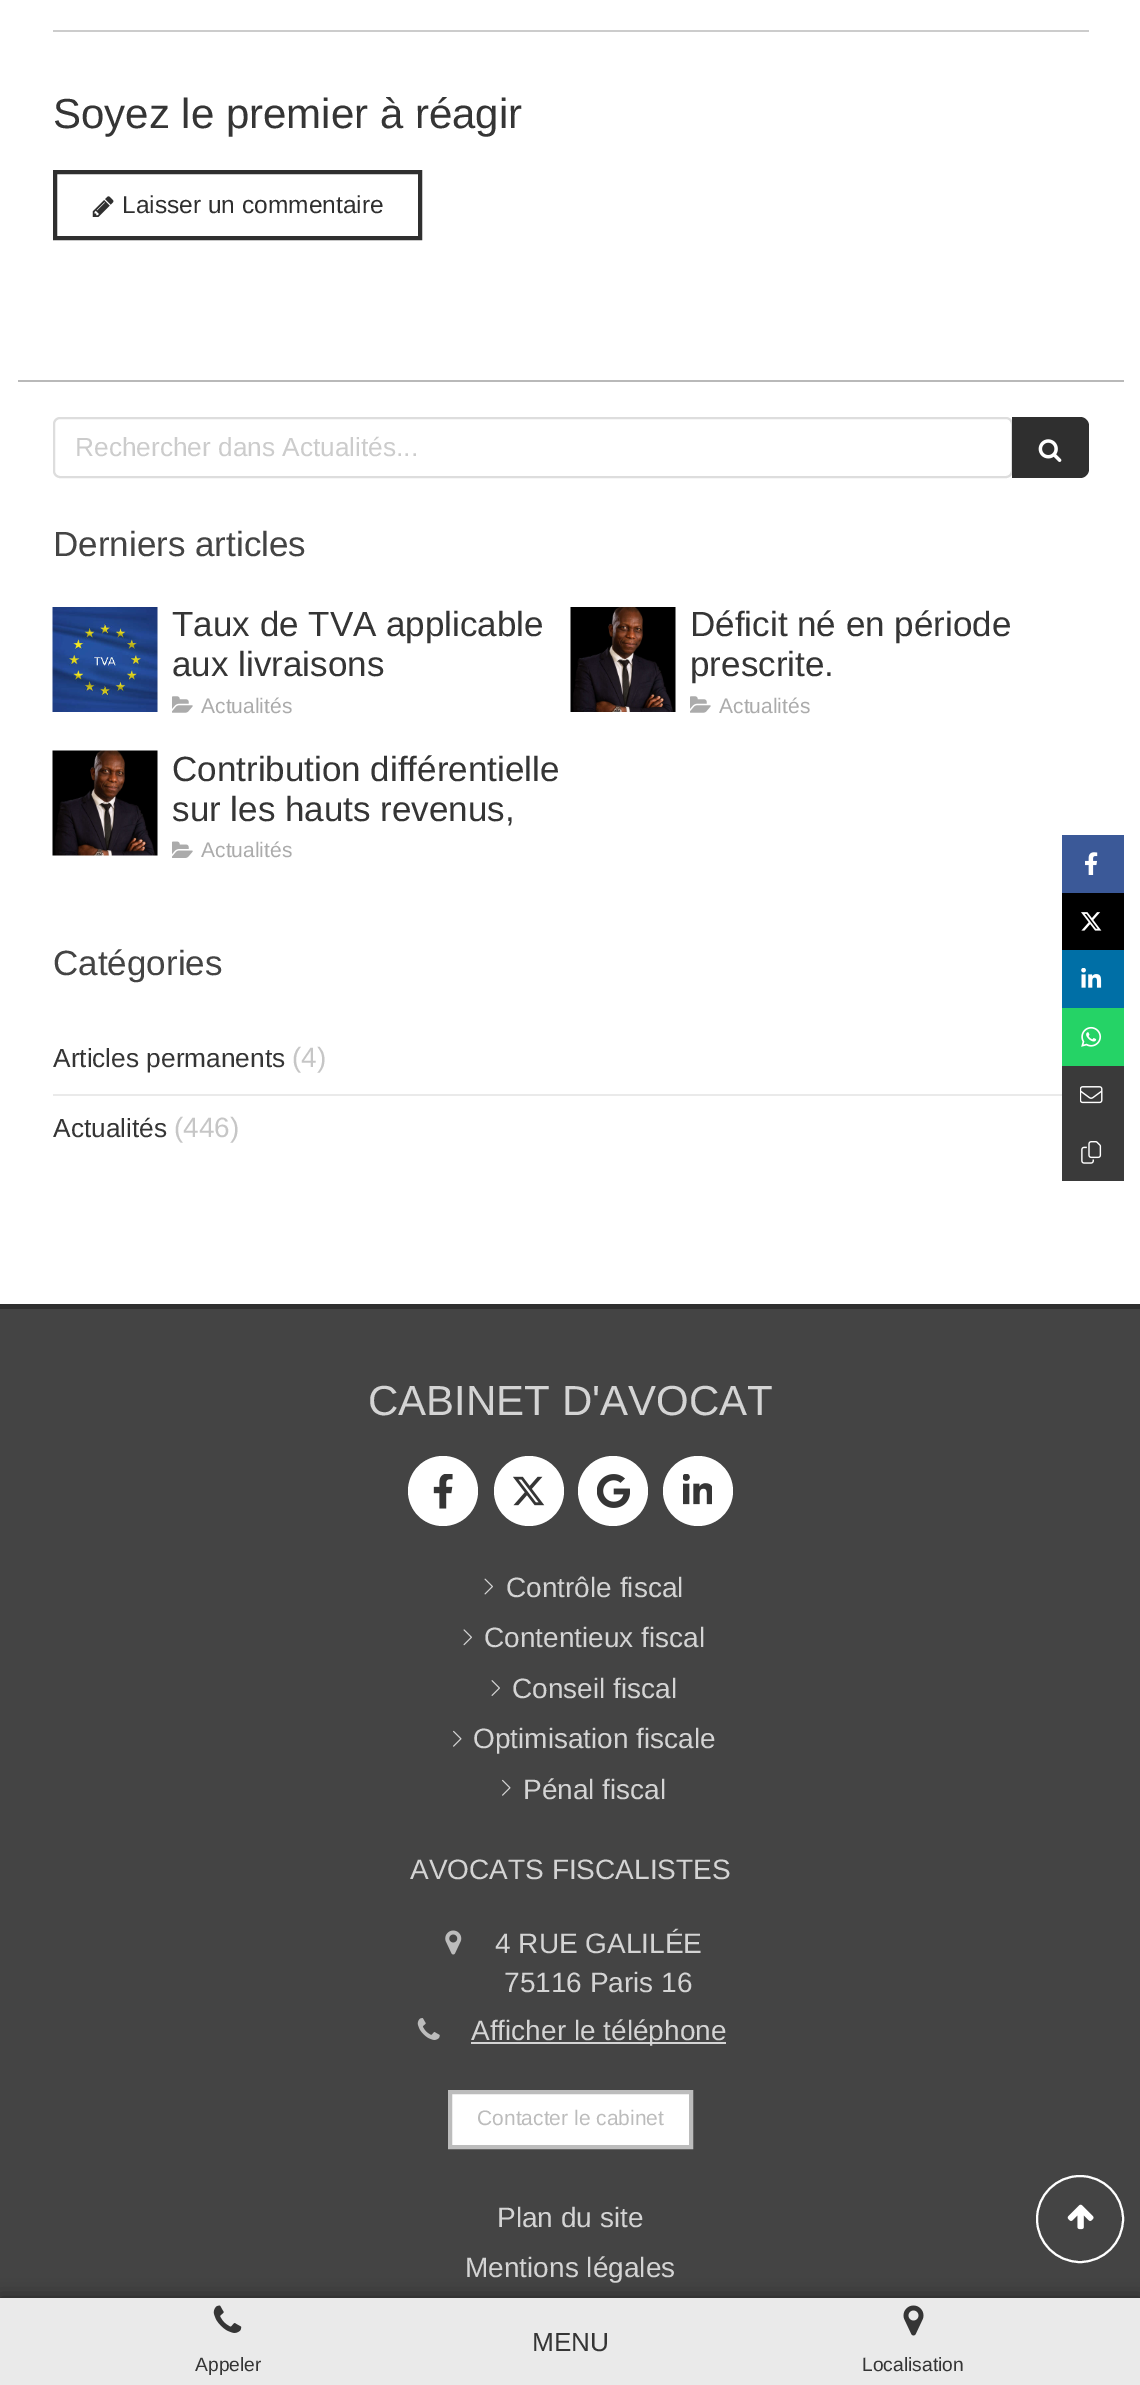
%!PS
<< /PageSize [1140 2385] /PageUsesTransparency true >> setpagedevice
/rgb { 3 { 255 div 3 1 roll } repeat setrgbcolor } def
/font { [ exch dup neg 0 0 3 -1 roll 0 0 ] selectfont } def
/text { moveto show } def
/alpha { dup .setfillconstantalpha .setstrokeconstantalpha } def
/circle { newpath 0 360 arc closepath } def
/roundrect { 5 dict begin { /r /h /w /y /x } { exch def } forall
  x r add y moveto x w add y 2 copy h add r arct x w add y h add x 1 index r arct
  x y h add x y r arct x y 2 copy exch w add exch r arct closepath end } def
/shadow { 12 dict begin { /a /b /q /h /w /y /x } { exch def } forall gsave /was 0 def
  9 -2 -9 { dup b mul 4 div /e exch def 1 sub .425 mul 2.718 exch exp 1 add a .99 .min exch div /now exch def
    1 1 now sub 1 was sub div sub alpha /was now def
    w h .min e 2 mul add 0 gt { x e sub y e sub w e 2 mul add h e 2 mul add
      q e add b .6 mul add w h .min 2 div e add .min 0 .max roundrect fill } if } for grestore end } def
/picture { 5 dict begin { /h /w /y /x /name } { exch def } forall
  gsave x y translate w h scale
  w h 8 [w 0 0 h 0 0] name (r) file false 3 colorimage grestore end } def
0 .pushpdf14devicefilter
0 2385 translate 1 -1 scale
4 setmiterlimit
255 255 255 rgb
0 0 1140 2385 rectfill
185 185 185 rgb
18 380 1106 2 rectfill
204 204 204 rgb
53 30 1036 2 rectfill
47 47 47 rgb
4 setlinewidth
55 172 365 66 rectstroke
(img_01.rgb) 92 196 22 21 picture
59 89 152 rgb
1062 835 62 58 rectfill
(img_02.rgb) 1085 852 13 23 picture
0 0 0 rgb
1062 893 62 57 rectfill
(img_03.rgb) 1081 912 21 19 picture
0 111 166 rgb
1062 950 62 58 rectfill
(img_04.rgb) 1081 968 21 20 picture
37 211 102 rgb
1062 1008 62 58 rectfill
(img_05.rgb) 1081 1026 21 21 picture
58 58 58 rgb
1062 1066 62 115 rectfill
(img_06.rgb) 1080 1086 23 18 picture
(img_07.rgb) 1081 1141 21 23 picture
221 221 221 rgb
2 setlinewidth
54 418 958 59 6 roundrect stroke
47 47 47 rgb
1012 417 moveto 68 0 rlineto 5 0 9 4 9 9 rcurveto 0 43 rlineto 0 5 -4 9 -9 9 rcurveto -68 0 rlineto closepath fill
(img_08.rgb) 1038 439 24 23 picture
250 250 250 rgb
157 607 1 105 rectfill
(img_09.rgb) 52 607 106 105 picture
(img_10.rgb) 172 696 21 17 picture
675 607 1 105 rectfill
(img_11.rgb) 570 607 106 105 picture
(img_10.rgb) 690 696 21 17 picture
53 751 105 105 rectfill
(img_12.rgb) 52 750 106 106 picture
(img_13.rgb) 172 841 21 17 picture
234 234 234 rgb
53 1094 1009 2 rectfill
68 68 68 rgb
0 1309 1140 989 rectfill
47 47 47 rgb
0 1304 1140 5 rectfill
255 255 255 rgb
443 1491 35 circle fill
(img_14.rgb) 433 1474 20 35 picture
529 1491 35 circle fill
(img_15.rgb) 513 1476 32 30 picture
613 1491 35 circle fill
(img_16.rgb) 597 1474 33 34 picture
698 1491 35 circle fill
(img_17.rgb) 683 1474 29 31 picture
(img_18.rgb) 484 1578 9 17 picture
(img_19.rgb) 463 1629 9 17 picture
(img_20.rgb) 491 1680 9 16 picture
(img_21.rgb) 453 1730 9 17 picture
(img_21.rgb) 502 1779 9 17 picture
(img_22.rgb) 445 1930 17 25 picture
(img_23.rgb) 417 2018 23 22 picture
212 212 212 rgb
471 2042 255 2 rectfill
255 255 255 rgb
450 2092 moveto 241 0 rlineto 0 55 rlineto -241 0 rlineto closepath gsave fill grestore
188 188 188 rgb
4 setlinewidth
stroke
255 255 255 rgb
2 setlinewidth
1080 2219 43 circle stroke
(img_24.rgb) 1067 2204 27 26 picture
0 0 0 rgb
0 2298 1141 87 0 9 0.5 shadow
234 234 234 rgb
0 2298 1140 87 rectfill
(img_25.rgb) 213 2305 29 28 picture
(img_26.rgb) 903 2305 21 31 picture
/LiberationSans-Regular 42 font
53 53 53 rgb
(Soyez le premier à réagir) 53 128 text
/LiberationSans-Regular 24.5 font
47 47 47 rgb
(Laisser un commentaire) 122 213 text
/LiberationSans-Regular 26.25 font
204 204 204 rgb
(Rechercher dans Actualités...) 75 456 text
/LiberationSans-Regular 35 font
68 68 68 rgb
(Derniers articles) 53 556 text
53 53 53 rgb
(Taux de TVA applicable) 172 636 text
(aux livraisons) 172 676 text
/LiberationSans-Regular 21 font
171 171 171 rgb
(Actualités) 201 713 text
/LiberationSans-Regular 35 font
53 53 53 rgb
(Déficit né en période) 690 636 text
(prescrite.) 690 676 text
/LiberationSans-Regular 21 font
171 171 171 rgb
(Actualités) 719 713 text
/LiberationSans-Regular 35 font
53 53 53 rgb
(Contribution différentielle) 172 781 text
(sur les hauts revenus,) 172 821 text
/LiberationSans-Regular 21 font
171 171 171 rgb
(Actualités) 201 857 text
/LiberationSans-Regular 35 font
68 68 68 rgb
(Catégories) 53 975 text
/LiberationSans-Regular 26.25 font
53 53 53 rgb
(Articles permanents) 53 1067 text
/LiberationSans-Regular 28 font
198 198 198 rgb
(\(4\)) 292 1067 text
/LiberationSans-Regular 26.25 font
53 53 53 rgb
(Actualités) 53 1137 text
/LiberationSans-Regular 28 font
198 198 198 rgb
(\(446\)) 174 1137 text
/LiberationSans-Regular 42 font
212 212 212 rgb
(CABINET D'AVOCAT) 368 1415 text
/LiberationSans-Regular 28 font
(Contrôle fiscal) 506 1597 text
(Contentieux fiscal) 484 1647 text
(Conseil fiscal) 512 1698 text
(Optimisation fiscale) 473 1748 text
(Pénal fiscal) 523 1799 text
(AVOCATS FISCALISTES) 410 1879 text
(4 RUE GALILÉE) 495 1953 text
(75116 Paris 16) 504 1992 text
(Afficher le téléphone) 471 2040 text
/LiberationSans-Regular 21 font
188 188 188 rgb
(Contacter le cabinet) 477 2125 text
/LiberationSans-Regular 28 font
212 212 212 rgb
(Plan du site) 497 2227 text
(Mentions légales) 465 2277 text
/LiberationSans-Regular 26.25 font
53 53 53 rgb
(MENU) 532 2351 text
/LiberationSans-Regular 19.25 font
(Appeler) 195 2371 text
(Localisation) 862 2371 text
.poppdf14devicefilter showpage
